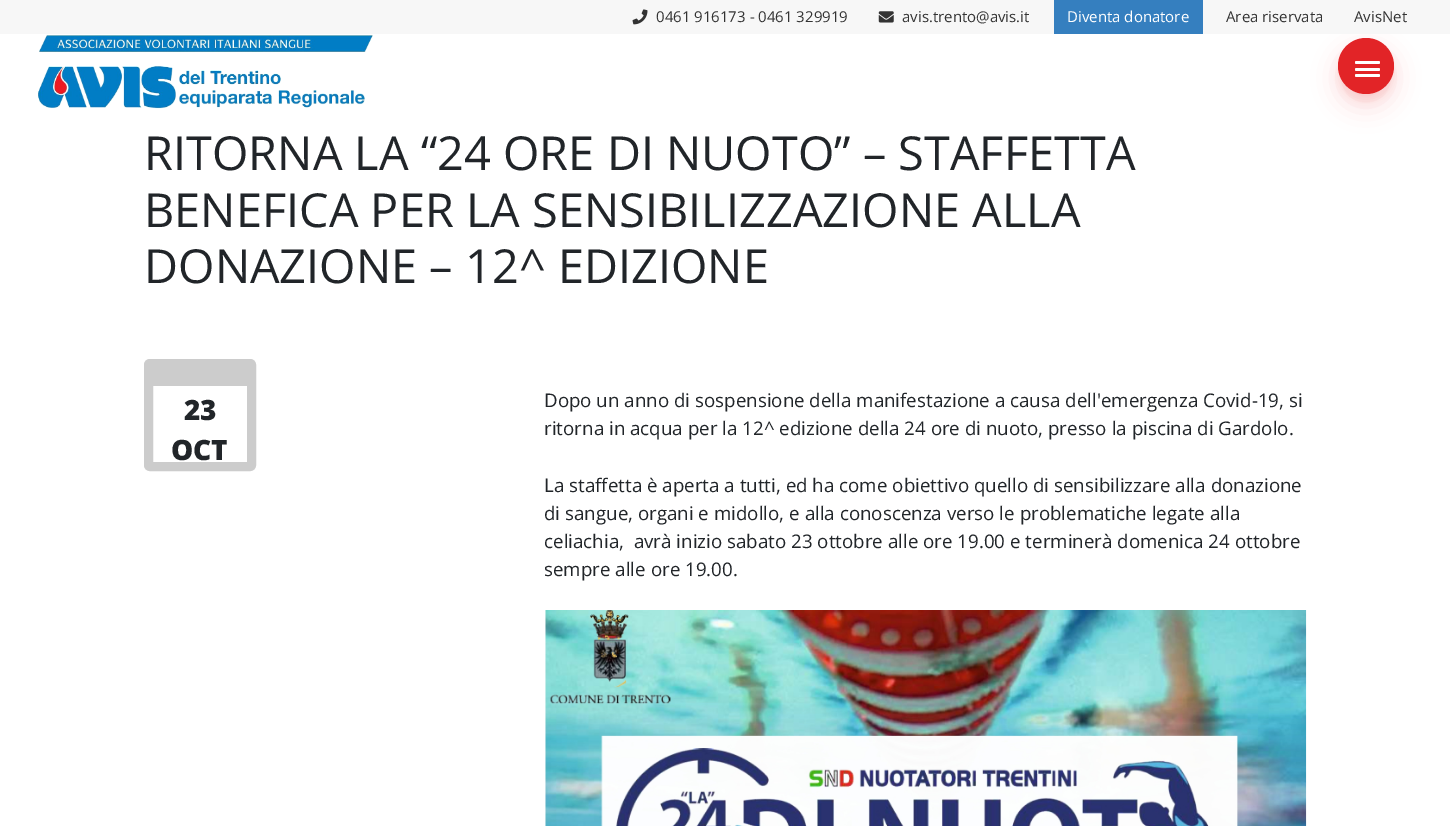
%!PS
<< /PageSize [1450 826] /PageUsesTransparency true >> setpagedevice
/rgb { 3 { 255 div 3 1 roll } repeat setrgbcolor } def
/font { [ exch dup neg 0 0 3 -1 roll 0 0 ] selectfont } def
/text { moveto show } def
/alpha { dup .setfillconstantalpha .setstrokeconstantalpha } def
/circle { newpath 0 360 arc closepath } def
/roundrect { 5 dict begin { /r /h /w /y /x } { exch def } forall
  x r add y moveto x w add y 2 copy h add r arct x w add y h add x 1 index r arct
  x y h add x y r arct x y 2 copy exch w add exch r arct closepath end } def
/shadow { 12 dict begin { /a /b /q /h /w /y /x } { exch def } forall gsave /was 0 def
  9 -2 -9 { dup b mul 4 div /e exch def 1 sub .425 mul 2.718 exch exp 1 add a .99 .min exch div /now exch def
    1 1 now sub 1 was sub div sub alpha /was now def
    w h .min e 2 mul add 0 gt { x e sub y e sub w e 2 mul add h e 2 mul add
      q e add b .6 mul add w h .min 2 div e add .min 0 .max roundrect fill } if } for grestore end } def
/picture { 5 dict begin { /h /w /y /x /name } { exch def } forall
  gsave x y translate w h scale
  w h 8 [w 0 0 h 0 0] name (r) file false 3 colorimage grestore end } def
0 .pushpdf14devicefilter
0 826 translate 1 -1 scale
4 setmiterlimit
255 255 255 rgb
0 0 1450 826 rectfill
226 36 39 rgb
1338 45 56 56 28 4 0.11 shadow
1338 50 56 56 28 12.5 0.15 shadow
247 247 247 rgb
0 0 1450 34 rectfill
(img_01.rgb) 632 9 16 16 picture
(img_02.rgb) 878 11 16 12 picture
53 127 191 rgb
1054 0 149 34 rectfill
(img_03.rgb) 38 35 335 74 picture
226 36 39 rgb
1366 66 28 circle fill
255 255 255 rgb
1355 68 25 3 1.5 roundrect fill
1355 61 25 3 1.5 roundrect fill
1355 74 25 3 1.5 roundrect fill
204 204 204 rgb
9 setlinewidth
148.5 363.5 103 103 1.5 roundrect stroke
153 368 94 18 rectfill
(img_04.rgb) 545 610 762 216 picture
/OpenSans-Regular 15 font
51 51 51 rgb
(0461 916173 - 0461 329919) 656 22 text
(avis.trento@avis.it) 902 22 text
255 255 255 rgb
(Diventa donatore) 1067 22 text
51 51 51 rgb
(Area riservata) 1226 22 text
(AvisNet) 1354 22 text
/OpenSans-Regular 46.9 font
33 37 41 rgb
(RITORNA LA “24 ORE DI NUOTO” – STAFFETTA) 144 170 text
(BENEFICA PER LA SENSIBILIZZAZIONE ALLA) 144 227 text
(DONAZIONE – 12^ EDIZIONE) 144 283 text
/OpenSans-ExtraBold 28 font
(23) 184 420 text
(OCT) 171 460 text
/OpenSans-Regular 18.75 font
(Dopo un anno di sospensione della manifestazione a causa dell'emergenza Covid-19, si) 544 407 text
(ritorna in acqua per la 12^ edizione della 24 ore di nuoto, presso la piscina di Gardolo.) 544 435 text
(La staffetta è aperta a tutti, ed ha come obiettivo quello di sensibilizzare alla donazione) 544 492 text
(di sangue, organi e midollo, e alla conoscenza verso le problematiche legate alla) 544 520 text
(celiachia,  avrà inizio sabato 23 ottobre alle ore 19.00 e terminerà domenica 24 ottobre) 544 548 text
(sempre alle ore 19.00.) 544 576 text
.poppdf14devicefilter showpage
